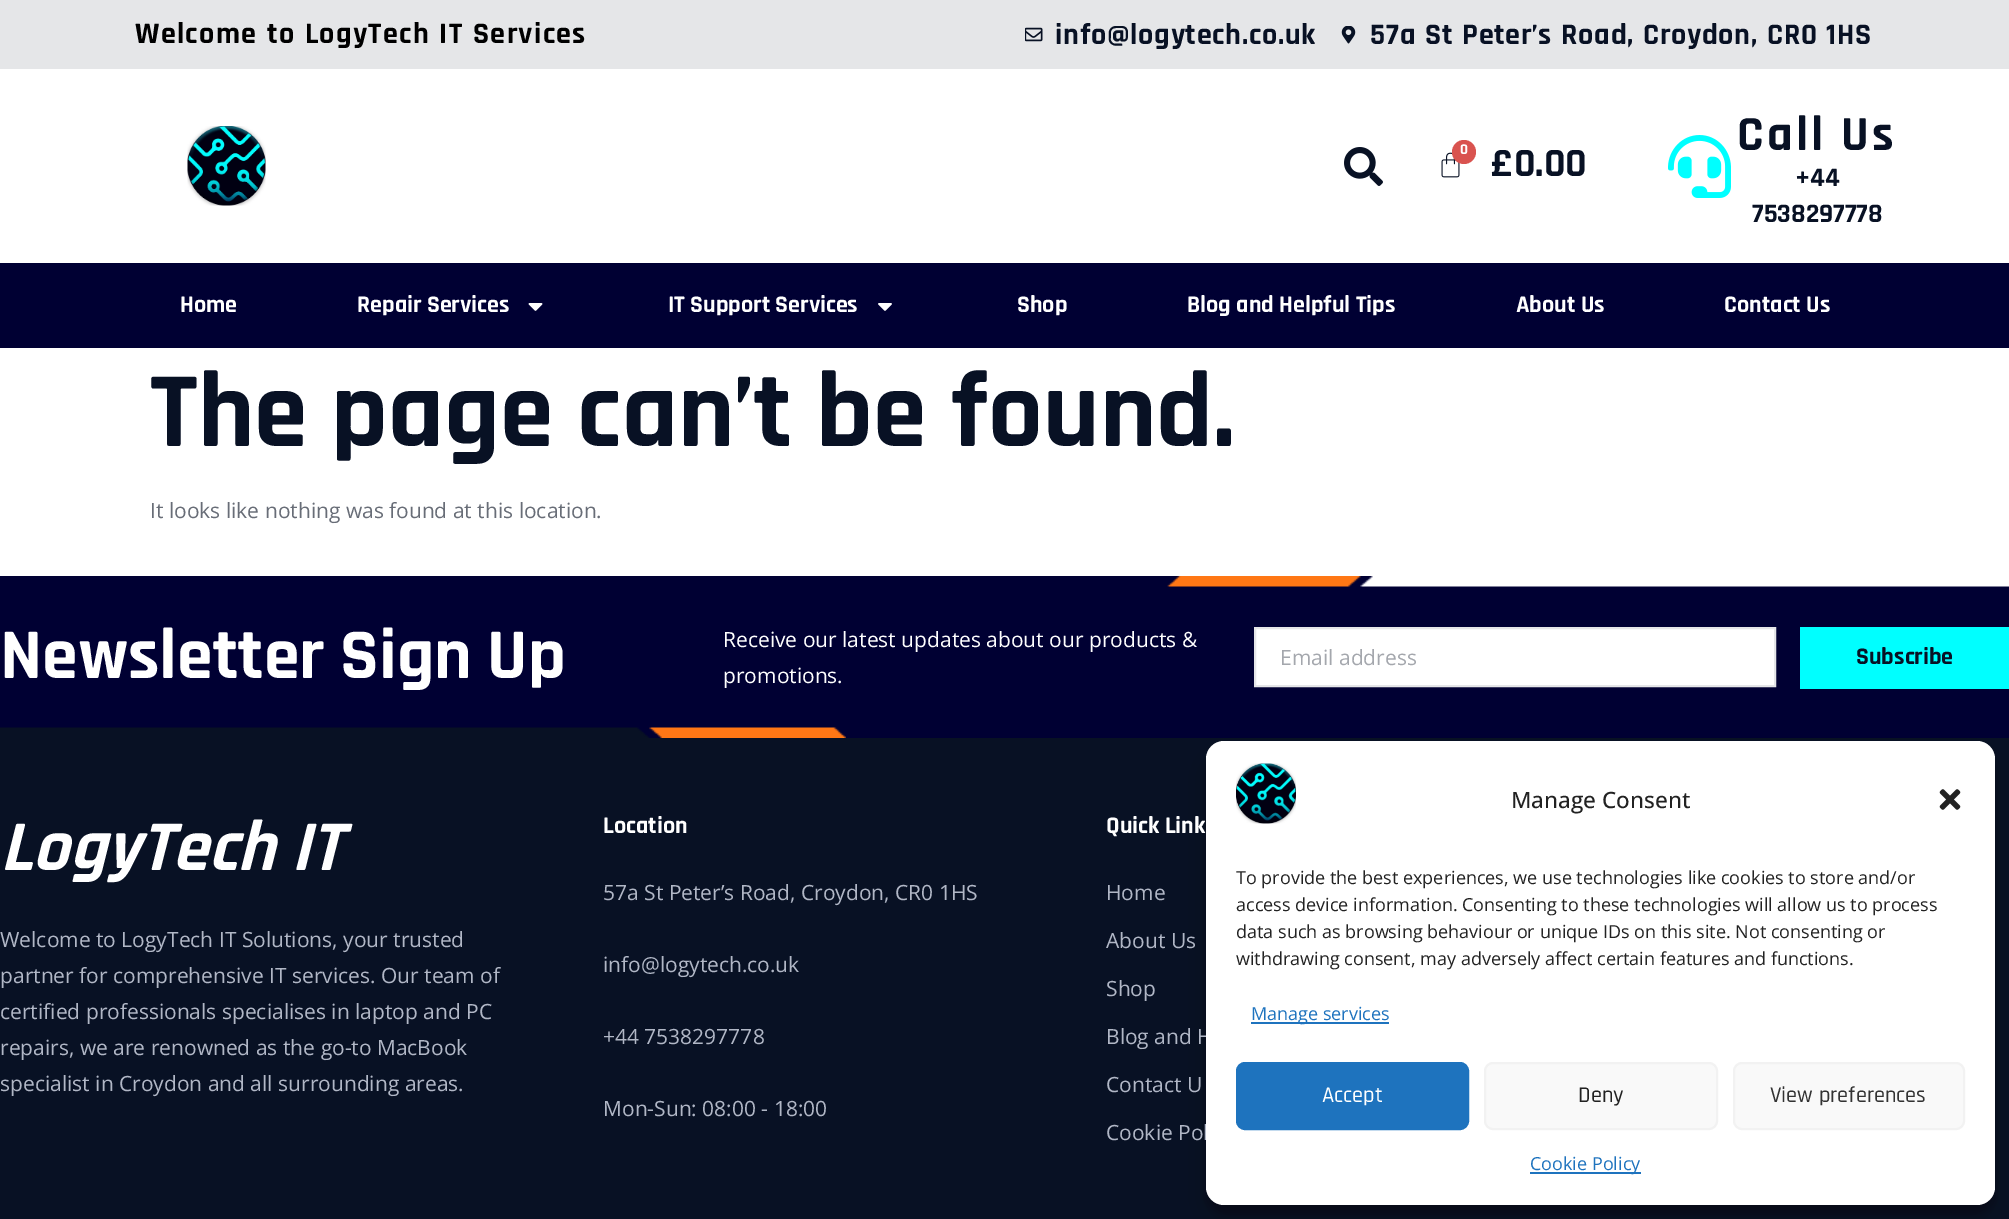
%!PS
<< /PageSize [2009 1219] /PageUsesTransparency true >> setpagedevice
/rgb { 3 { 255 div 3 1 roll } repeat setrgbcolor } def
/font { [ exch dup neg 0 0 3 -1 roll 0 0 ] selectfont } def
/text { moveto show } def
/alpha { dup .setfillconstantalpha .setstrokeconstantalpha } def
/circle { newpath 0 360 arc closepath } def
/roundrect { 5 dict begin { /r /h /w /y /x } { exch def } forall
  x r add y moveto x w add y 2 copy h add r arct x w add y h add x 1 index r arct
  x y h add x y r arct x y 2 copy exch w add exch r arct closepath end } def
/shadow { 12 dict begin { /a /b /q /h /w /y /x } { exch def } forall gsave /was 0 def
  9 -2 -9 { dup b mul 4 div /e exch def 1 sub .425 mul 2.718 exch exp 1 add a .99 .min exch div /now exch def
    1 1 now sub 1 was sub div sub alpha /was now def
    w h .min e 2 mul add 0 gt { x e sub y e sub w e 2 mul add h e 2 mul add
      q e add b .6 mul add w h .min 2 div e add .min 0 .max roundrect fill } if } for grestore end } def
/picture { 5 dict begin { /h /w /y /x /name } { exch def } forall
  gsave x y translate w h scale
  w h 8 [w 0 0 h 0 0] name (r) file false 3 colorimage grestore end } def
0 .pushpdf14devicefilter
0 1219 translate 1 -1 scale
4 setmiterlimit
255 255 255 rgb
0 0 2009 1219 rectfill
229 230 232 rgb
0 0 2009 69 rectfill
(img_01.rgb) 1025 27 18 15 picture
(img_02.rgb) 1341 26 15 18 picture
(img_03.rgb) 187 126 79 80 picture
(img_04.rgb) 1344 147 39 39 picture
(img_05.rgb) 1441 152 19 26 picture
217 83 79 rgb
1464 152 12 circle fill
(img_06.rgb) 1668 135 63 63 picture
0 0 51 rgb
0 263 2009 85 rectfill
(img_07.rgb) 528 303 15 8 picture
(img_08.rgb) 878 303 14 8 picture
0 576 2009 162 rectfill
(img_09.rgb) 1167 576 842 11 picture
255 255 255 rgb
1255 628 moveto 520 0 rlineto 0 58 rlineto -520 0 rlineto closepath gsave fill grestore
229 230 232 rgb
2 setlinewidth
stroke
0 255 255 rgb
1800 627 209 62 rectfill
(img_10.rgb) 0 727 846 11 picture
8 17 36 rgb
0 738 2009 481 rectfill
0 0 0 rgb
1206 750 789 464 18 4.5 0.23 shadow
1206 756 789 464 18 15 0.19 shadow
/Rajdhani-Bold 30 font
135 43 moveto 1.5 0 32 1.35 0 (Welcome to LogyTech IT Services) awidthshow
8 17 36 rgb
1055 44 moveto 0.75 0 (info@logytech.co.uk) ashow
1370 44 moveto 1.5 0 32 0.75 0 (57a St Peter’s Road, Croydon, CR0 1HS) awidthshow
/Rajdhani-Bold 15 font
255 255 255 rgb
(0) 1460 154 text
/Rajdhani-Bold 40.5 font
8 17 36 rgb
(£0.00) 1491 176 text
/Rajdhani-Bold 49.5 font
1737 150 moveto 3.25 0 (Call Us) ashow
/Rajdhani-Bold 27 font
(+44) 1795 186 text
(7538297778) 1752 222 text
/Rajdhani-Bold 24 font
255 255 255 rgb
(Home) 180 312 text
(Repair Services) 357 312 text
(IT Support Services) 668 312 text
(Shop) 1017 312 text
(Blog and Helpful Tips) 1187 312 text
(About Us) 1516 312 text
(Contact Us) 1724 312 text
/Rajdhani-Bold 108 font
8 17 36 rgb
(The page can’t be found.) 150 446 text
/OpenSans-Regular 21 font
104 109 119 rgb
(It looks like nothing was found at this location.) 150 518 text
/Rajdhani-Bold 72 font
255 255 255 rgb
(Newsletter Sign Up) 0 678 text
/OpenSans-Regular 21 font
(Receive our latest updates about our products &) 723 647 text
(promotions.) 723 683 text
164 167 173 rgb
(Email address) 1280 665 text
/Rajdhani-Bold 24 font
8 17 36 rgb
(Subscribe) 1856 664 text
/Rajdhani-BoldItalic 72 font
255 255 255 rgb
(LogyTech IT) 0 870 text
/OpenSans-Regular 21 font
177 183 198 rgb
(Welcome to LogyTech IT Solutions, your trusted) 0 947 text
(partner for comprehensive IT services. Our team of) 0 983 text
(certified professionals specialises in laptop and PC) 0 1019 text
(repairs, we are renowned as the go-to MacBook) 0 1055 text
(specialist in Croydon and all surrounding areas.) 0 1091 text
/Rajdhani-Bold 24 font
255 255 255 rgb
(Location) 603 833 text
/OpenSans-Regular 21 font
177 183 198 rgb
(57a St Peter’s Road, Croydon, CR0 1HS) 603 900 text
(info@logytech.co.uk) 603 972 text
(+44 7538297778) 603 1044 text
(Mon-Sun: 08:00 - 18:00) 603 1116 text
/Rajdhani-Bold 24 font
255 255 255 rgb
(Quick Link) 1106 833 text
/OpenSans-Regular 21 font
177 183 198 rgb
(Home) 1106 900 text
(About Us) 1106 948 text
(Shop) 1106 996 text
(Blog and H) 1106 1044 text
(Contact U) 1106 1092 text
(Cookie Pol) 1106 1140 text
255 255 255 rgb
1206 741 789 464 18 roundrect fill
(img_11.rgb) 1236 763 60 61 picture
/OpenSans-Medium 22.5 font
34 34 34 rgb
(Manage Consent) 1511 808 text
(img_12.rgb) 1939 789 22 21 picture
/OpenSans-Regular 18 font
(To provide the best experiences, we use technologies like cookies to store and/or) 1236 884 text
(access device information. Consenting to these technologies will allow us to process) 1236 911 text
(data such as browsing behaviour or unique IDs on this site. Not consenting or) 1236 938 text
(withdrawing consent, may adversely affect certain features and functions.) 1236 965 text
30 115 190 rgb
1251 1022 138 2 rectfill
(Manage services) 1251 1020 text
1237 1063 231 66 8 roundrect gsave fill grestore
stroke
/Rajdhani-Medium 22.5 font
255 255 255 rgb
(Accept) 1322 1102 text
249 249 249 rgb
1485 1063 232 66 8 roundrect gsave fill grestore
242 242 242 rgb
stroke
34 34 34 rgb
(Deny) 1578 1102 text
249 249 249 rgb
1734 1063 230 66 8 roundrect gsave fill grestore
242 242 242 rgb
stroke
51 51 51 rgb
(View preferences) 1770 1102 text
30 115 190 rgb
1530 1172 111 2 rectfill
/OpenSans-Regular 18 font
(Cookie Policy) 1530 1170 text
.poppdf14devicefilter showpage
